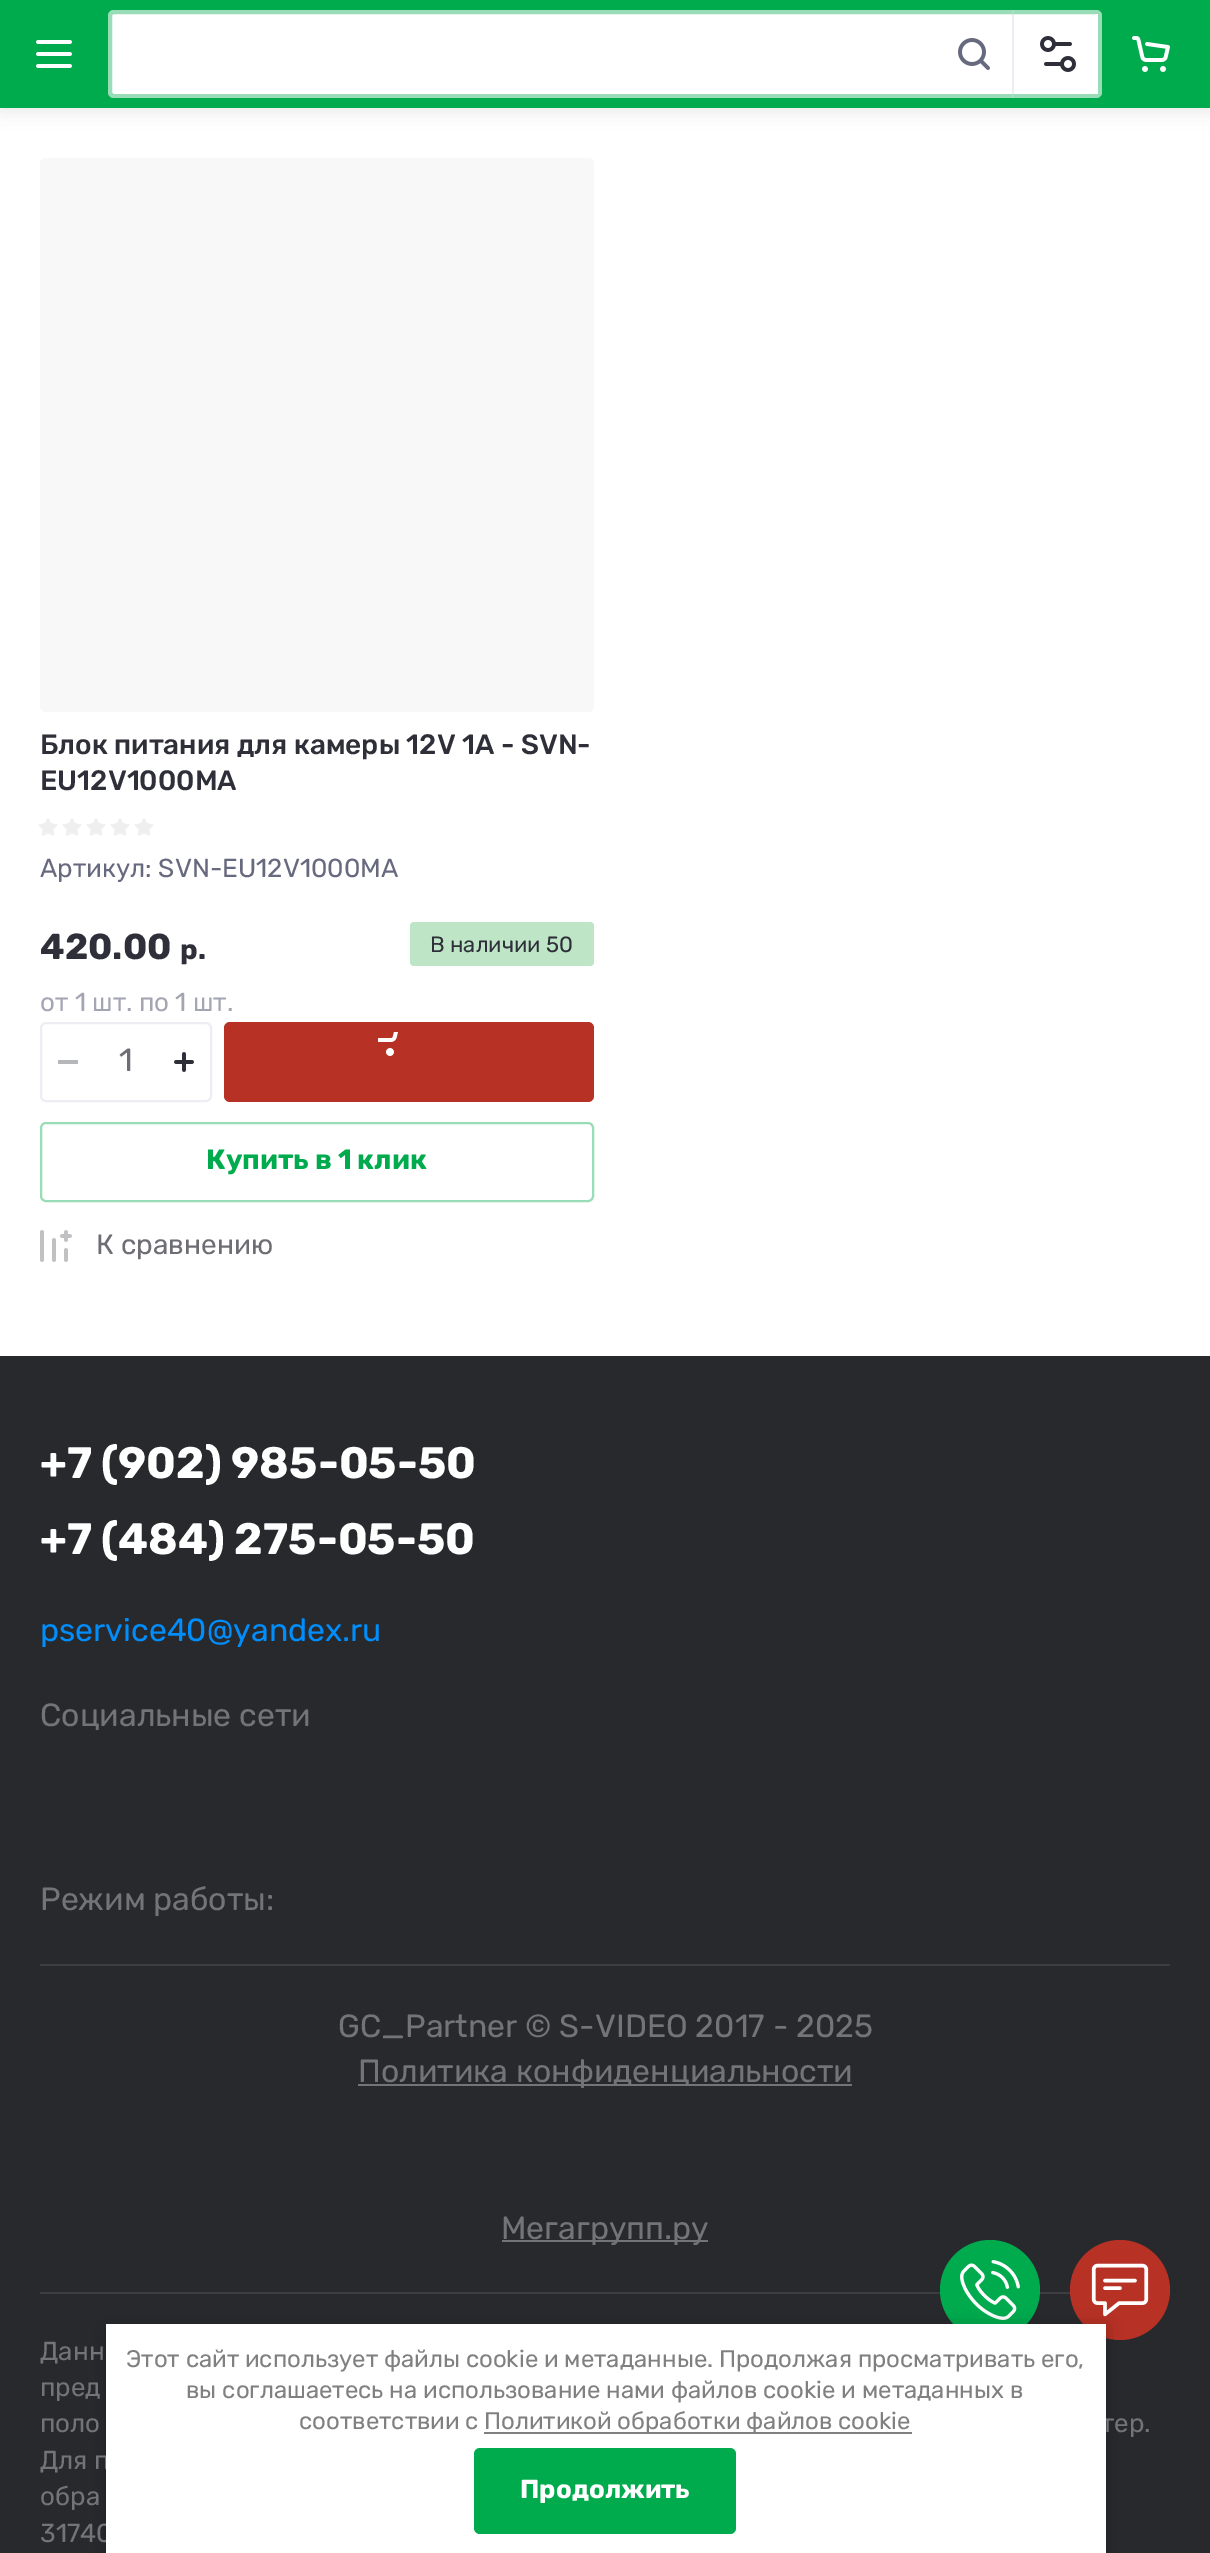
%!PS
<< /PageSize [1210 2553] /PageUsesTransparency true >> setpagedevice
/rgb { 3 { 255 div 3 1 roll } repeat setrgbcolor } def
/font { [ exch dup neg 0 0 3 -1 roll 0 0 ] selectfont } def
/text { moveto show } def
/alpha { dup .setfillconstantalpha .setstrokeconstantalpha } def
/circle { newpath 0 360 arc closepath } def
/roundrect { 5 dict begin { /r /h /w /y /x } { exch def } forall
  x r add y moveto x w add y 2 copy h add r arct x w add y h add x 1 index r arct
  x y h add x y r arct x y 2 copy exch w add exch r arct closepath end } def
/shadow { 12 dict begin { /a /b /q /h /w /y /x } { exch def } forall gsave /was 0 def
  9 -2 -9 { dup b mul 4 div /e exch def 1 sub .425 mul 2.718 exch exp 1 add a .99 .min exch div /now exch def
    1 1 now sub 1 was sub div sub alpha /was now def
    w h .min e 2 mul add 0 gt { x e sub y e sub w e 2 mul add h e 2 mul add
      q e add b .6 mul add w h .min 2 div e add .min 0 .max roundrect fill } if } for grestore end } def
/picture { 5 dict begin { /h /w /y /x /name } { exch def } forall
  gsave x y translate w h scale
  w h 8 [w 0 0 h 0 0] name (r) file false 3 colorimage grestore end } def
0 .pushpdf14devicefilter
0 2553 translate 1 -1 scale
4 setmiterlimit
255 255 255 rgb
0 0 1210 2553 rectfill
0 0 0 rgb
0 4 1210 108 0 8 0.08 shadow
0 171 78 rgb
0 0 1210 108 rectfill
(img_01.rgb) 36 40 36 28 picture
255 255 255 rgb
108 10 994 88 6 roundrect fill
0.4 alpha
0 171 78 rgb
4 setlinewidth
110 12 990 84 4 roundrect stroke
1 alpha
(img_02.rgb) 958 38 32 32 picture
0.4 alpha
210 211 224 rgb
1012 10 2 88 rectfill
1 alpha
255 255 255 rgb
1096 14 2 80 rectfill
(img_03.rgb) 1040 36 36 36 picture
(img_04.rgb) 1132 36 38 36 picture
248 248 248 rgb
40 158 554 554 6 roundrect fill
(img_05.rgb) 38 818 116 18 picture
189 229 198 rgb
410 922 184 44 4 roundrect fill
237 237 243 rgb
2 setlinewidth
41 1023 170 78 5 roundrect stroke
182 183 186 rgb
58 1060 20 4 rectfill
(img_06.rgb) 174 1052 20 20 picture
184 49 37 rgb
224 1022 370 80 6 roundrect fill
(img_07.rgb) 378 1032 20 24 picture
153 221 184 rgb
41 1123 552 78 5 roundrect stroke
(img_08.rgb) 40 1230 32 32 picture
39 41 45 rgb
0 1356 1210 1197 rectfill
61 62 66 rgb
40 1964 1130 2 rectfill
40 2292 1130 2 rectfill
115 116 119 rgb
358 2084 494 2 rectfill
502 2240 206 2 rectfill
0 171 78 rgb
990 2290 50 circle fill
(img_09.rgb) 960 2260 60 60 picture
184 49 37 rgb
1120 2290 50 circle fill
(img_10.rgb) 1091 2263 58 54 picture
0 0 0 rgb
106 2326 1000 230 0 10 0.23 shadow
/Rubik-Medium 28 font
46 47 56 rgb
(Блок питания для камеры 12V 1A - SVN-) 40 754 text
(EU12V1000MA) 40 790 text
/Rubik-Regular 26 font
103 105 126 rgb
(Артикул: SVN-EU12V1000MA) 40 877 text
/Rubik-Bold 36 font
46 47 56 rgb
(420.00) 40 959 text
/Rubik-Bold 28 font
(р.) 180 959 text
/Rubik-Regular 22 font
(В наличии 50) 430 952 text
/Rubik-Regular 26 font
164 165 178 rgb
(от 1 шт. по 1 шт.) 40 1011 text
/Rubik-Regular 32 font
109 109 116 rgb
(1) 119 1071 text
/Rubik-Bold 28 font
0 171 78 rgb
(Купить в 1 клик) 206 1169 text
/Rubik-Regular 28 font
109 109 116 rgb
(К сравнению) 96 1254 text
/Rubik-Bold 44 font
255 255 255 rgb
(+7 \(902\) 985-05-50) 40 1478 text
(+7 \(484\) 275-05-50) 40 1554 text
/Rubik-Regular 32 font
0 142 252 rgb
(pservice40@yandex.ru) 40 1641 text
115 116 119 rgb
(Социальные сети) 40 1726 text
(Режим работы:) 40 1910 text
(GC_Partner © S-VIDEO 2017 - 2025) 338 2037 text
(Политика конфиденциальности) 358 2082 text
(Мегагрупп.ру) 501 2239 text
/Rubik-Regular 26 font
(Данн) 40 2360 text
(пред) 40 2396 text
(поло) 40 2432 text
(тер.) 1101 2432 text
(Для п) 40 2469 text
(обра) 40 2505 text
(31740) 40 2542 text
255 255 255 rgb
106 2324 1000 229 rectfill
/Rubik-Regular 24 font
128 128 128 rgb
(Этот сайт использует файлы cookie и метаданные. Продолжая просматривать его,) 126 2367 text
(вы соглашаетесь на использование нами файлов cookie и метаданных в) 186 2398 text
(соответствии с) 299 2429 text
484 2432 428 2 rectfill
(Политикой обработки файлов cookie) 484 2429 text
0 171 78 rgb
474 2448 262 86 6 roundrect fill
/Rubik-Bold 26 font
255 255 255 rgb
(Продолжить) 520 2498 text
.poppdf14devicefilter showpage
